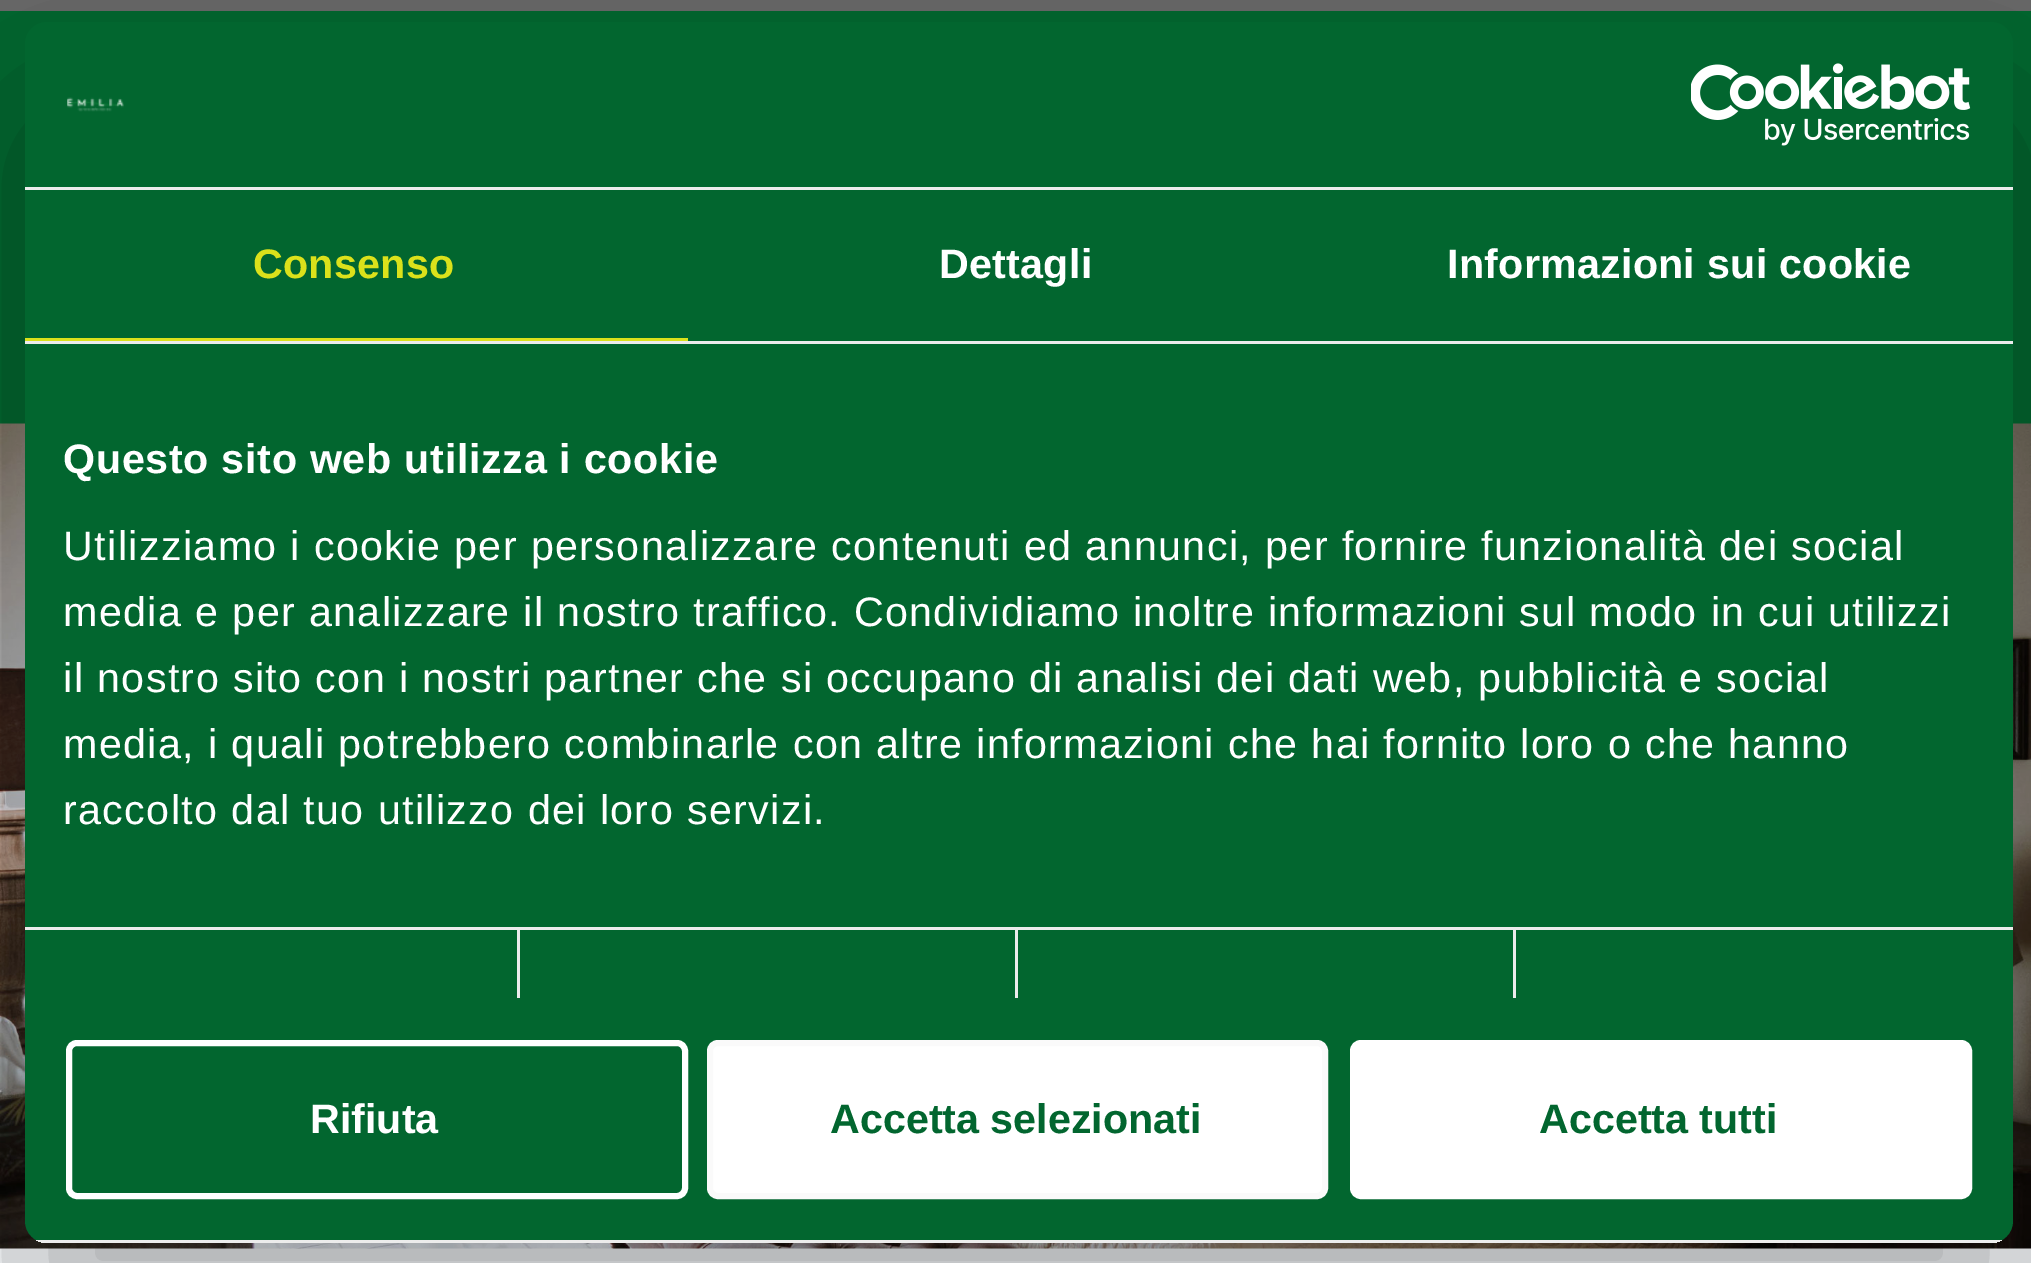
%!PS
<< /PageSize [2031 1263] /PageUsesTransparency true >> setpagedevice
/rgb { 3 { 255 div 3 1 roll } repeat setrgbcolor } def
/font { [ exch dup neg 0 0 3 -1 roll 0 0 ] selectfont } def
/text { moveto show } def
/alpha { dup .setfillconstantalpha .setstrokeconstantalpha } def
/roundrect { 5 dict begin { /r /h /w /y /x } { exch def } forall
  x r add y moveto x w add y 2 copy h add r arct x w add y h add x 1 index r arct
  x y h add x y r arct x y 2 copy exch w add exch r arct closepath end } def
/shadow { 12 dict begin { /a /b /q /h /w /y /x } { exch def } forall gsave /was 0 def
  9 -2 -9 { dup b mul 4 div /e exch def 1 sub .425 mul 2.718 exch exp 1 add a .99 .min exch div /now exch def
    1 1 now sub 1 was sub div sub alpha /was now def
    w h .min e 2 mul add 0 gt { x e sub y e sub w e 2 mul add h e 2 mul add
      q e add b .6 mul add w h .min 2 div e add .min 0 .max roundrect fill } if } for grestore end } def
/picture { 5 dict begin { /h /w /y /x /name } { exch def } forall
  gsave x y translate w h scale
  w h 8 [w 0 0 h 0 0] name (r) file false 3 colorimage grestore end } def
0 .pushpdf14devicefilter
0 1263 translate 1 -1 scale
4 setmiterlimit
248 250 252 rgb
0 0 2031 1263 rectfill
104 104 104 rgb
0 0 2031 11 rectfill
2 102 47 rgb
0 11 2031 413 rectfill
(img_01.rgb) 0 423 2031 826 picture
gsave
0 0 moveto 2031 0 rlineto 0 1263 rlineto -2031 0 rlineto closepath 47 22 moveto 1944 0 rlineto 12 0 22 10 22 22 rcurveto 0 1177 rlineto 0 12 -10 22 -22 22 rcurveto -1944 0 rlineto -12 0 -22 -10 -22 -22 rcurveto 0 -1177 rlineto 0 -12 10 -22 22 -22 rcurveto closepath eoclip newpath
0 0 0 rgb
25 110 1988 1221 22 93.5 0.3 shadow
grestore
25 22 1988 1221 22 roundrect fill
236 236 236 rgb
25 187 1988 3 rectfill
(img_02.rgb) 67 97 57 15 picture
(img_03.rgb) 1691 63 280 83 picture
25 341 1988 3 rectfill
219 225 27 rgb
25 338 663 3 rectfill
236 236 236 rgb
25 927 1988 3 rectfill
517 930 3 68 rectfill
1015 930 3 68 rectfill
1513 930 3 68 rectfill
gsave
25 22 1988 1221 22 roundrect clip newpath
36 1240 1966 3 rectfill
grestore
255 255 255 rgb
6 setlinewidth
69 1043 616 153 8 roundrect stroke
710 1043 615 153 8 roundrect gsave fill grestore
250 250 250 rgb
stroke
255 255 255 rgb
1353 1043 616 153 8 roundrect gsave fill grestore
stroke
/LiberationSans-Bold 41.25 font
219 225 27 rgb
253 278 moveto 0.25 0 (Consenso) ashow
255 255 255 rgb
939 278 moveto 0.25 0 (Dettagli) ashow
1447 278 moveto 0.25 0 (Informazioni sui cookie) ashow
63 473 moveto 0.7 0 (Questo sito web utilizza i cookie) ashow
/LiberationSans-Regular 41.25 font
63 560 moveto 1.38 0 (Utilizziamo i cookie per personalizzare contenuti ed annunci, per fornire funzionalità dei social) ashow
63 626 moveto 1.38 0 (media e per analizzare il nostro traffico. Condividiamo inoltre informazioni sul modo in cui utilizzi) ashow
63 692 moveto 1.38 0 (il nostro sito con i nostri partner che si occupano di analisi dei dati web, pubblicità e social) ashow
63 758 moveto 1.38 0 (media, i quali potrebbero combinarle con altre informazioni che hai fornito loro o che hanno) ashow
63 824 moveto 1.38 0 (raccolto dal tuo utilizzo dei loro servizi.) ashow
/LiberationSans-Bold 41.25 font
(Rifiuta) 310 1133 text
2 102 47 rgb
(Accetta selezionati) 830 1133 text
(Accetta tutti) 1539 1133 text
.poppdf14devicefilter showpage
